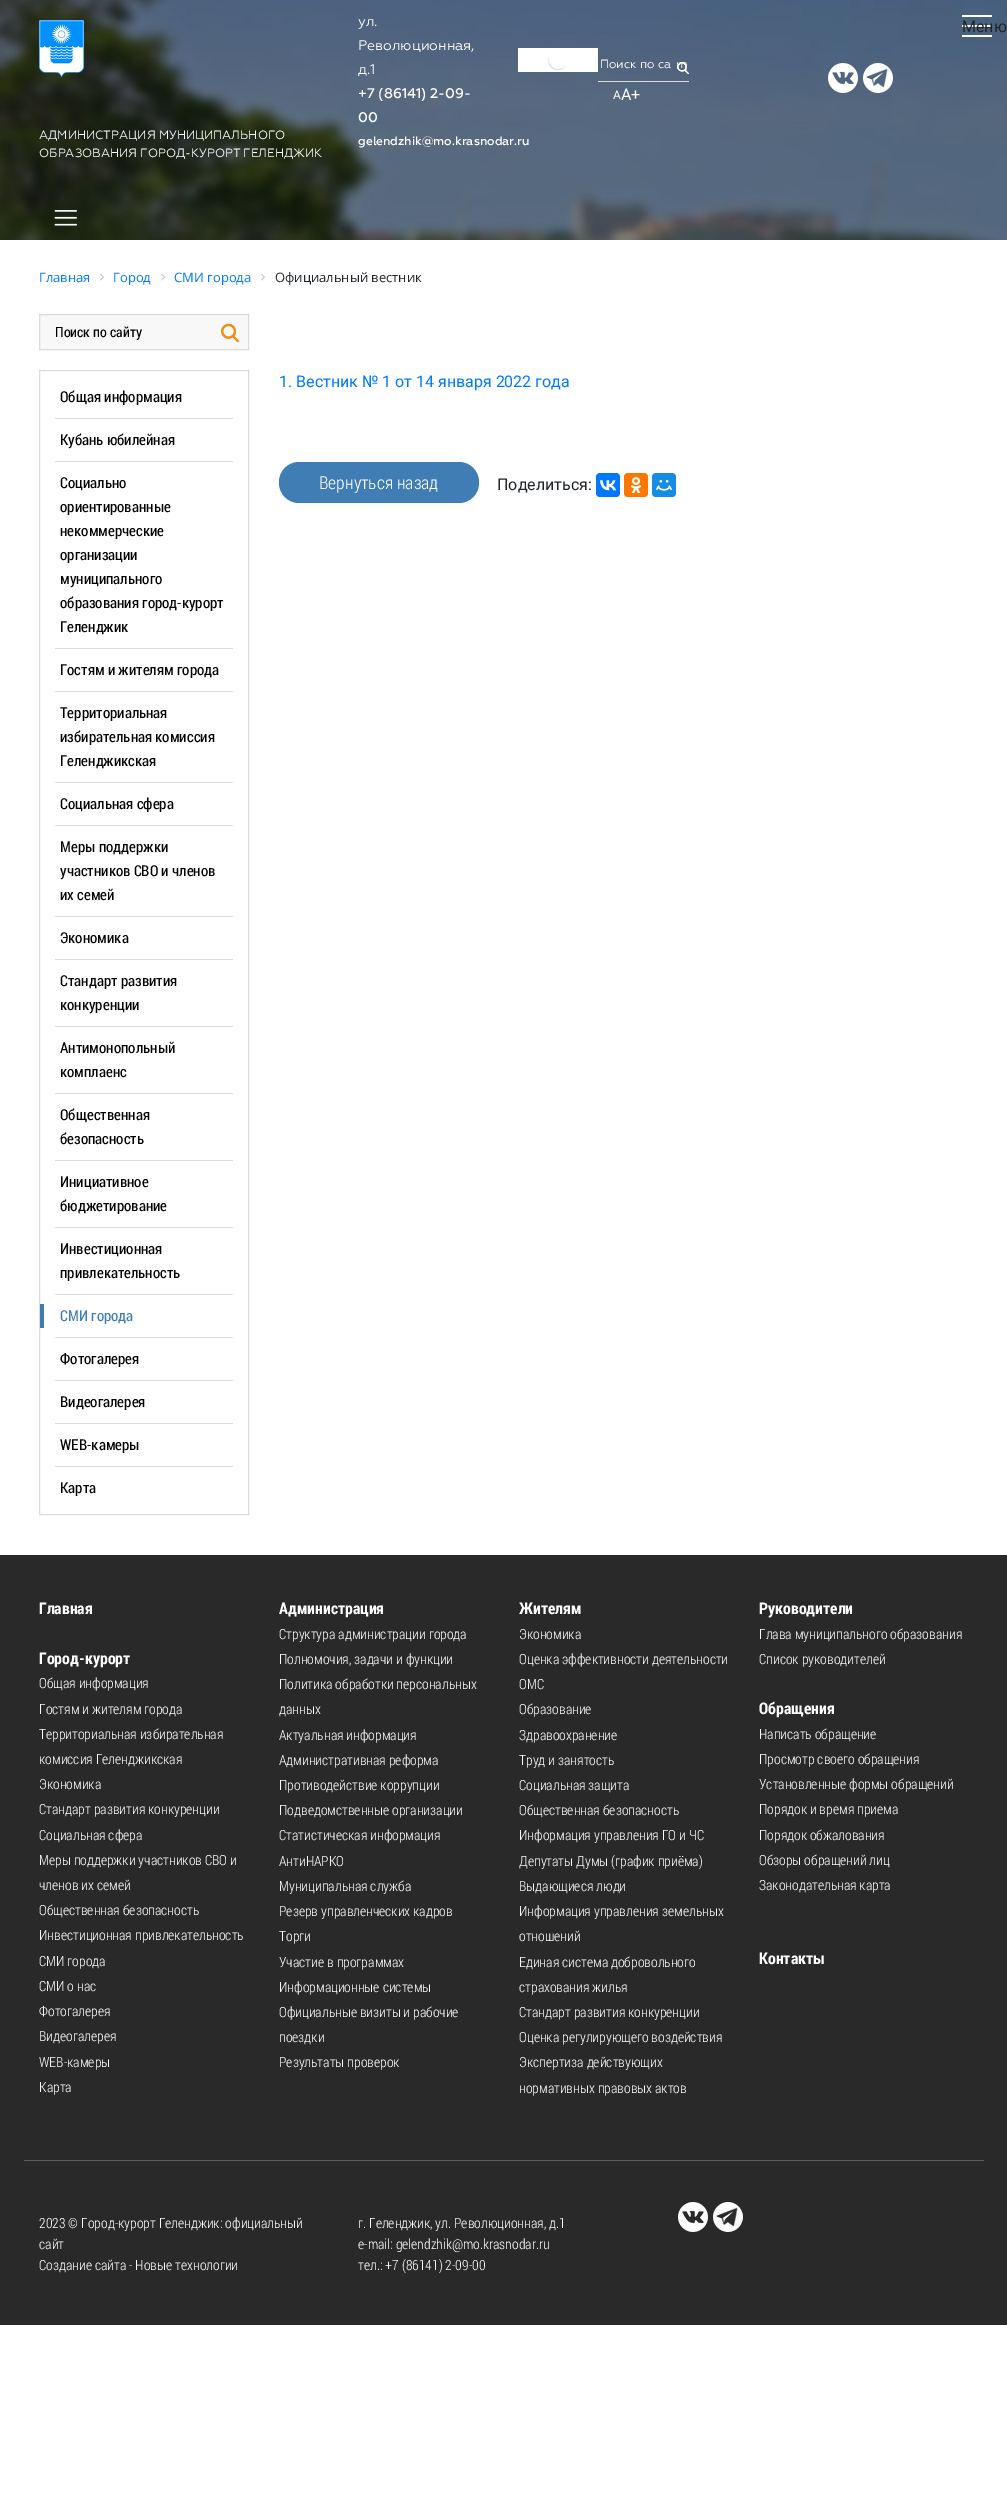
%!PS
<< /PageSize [1007 2500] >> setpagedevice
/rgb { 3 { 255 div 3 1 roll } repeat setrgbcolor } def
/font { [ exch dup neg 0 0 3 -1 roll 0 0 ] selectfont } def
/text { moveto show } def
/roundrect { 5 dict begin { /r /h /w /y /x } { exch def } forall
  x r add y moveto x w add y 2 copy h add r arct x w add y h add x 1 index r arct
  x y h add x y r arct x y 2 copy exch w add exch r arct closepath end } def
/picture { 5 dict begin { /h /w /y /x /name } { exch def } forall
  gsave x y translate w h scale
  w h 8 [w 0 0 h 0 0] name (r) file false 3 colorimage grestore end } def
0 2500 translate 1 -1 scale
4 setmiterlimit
255 255 255 rgb
0 0 1007 2500 rectfill
(img_01.rgb) 0 0 1007 240 picture
518 48 80 24 rectfill
(img_02.rgb) 547 57 19 14 picture
220 220 220 rgb
598 81 91 1 rectfill
(img_03.rgb) 677 62 12 12 picture
(img_04.rgb) 677 62 12 12 picture
(img_05.rgb) 828 63 30 30 picture
(img_06.rgb) 863 63 30 30 picture
(img_07.rgb) 39 20 45 57 picture
(img_08.rgb) 54 210 23 16 picture
255 255 255 rgb
962 15 30 2 1 roundrect fill
962 25 30 2 1 roundrect fill
962 35 30 2 1 roundrect fill
(img_09.rgb) 100 273 4 8 picture
(img_09.rgb) 161 273 4 8 picture
(img_09.rgb) 261 273 4 8 picture
248 248 248 rgb
39.5 314.5 moveto 209 0 rlineto 0 35 rlineto -209 0 rlineto closepath gsave fill grestore
220 220 220 rgb
stroke
(img_10.rgb) 221 324 18 18 picture
(img_11.rgb) 221 324 18 18 picture
39.5 370.5 209 1144 rectstroke
55 418 178 1 rectfill
55 461 178 1 rectfill
55 648 178 1 rectfill
55 691 178 1 rectfill
55 782 178 1 rectfill
55 825 178 1 rectfill
55 916 178 1 rectfill
55 959 178 1 rectfill
55 1026 178 1 rectfill
55 1093 178 1 rectfill
55 1160 178 1 rectfill
55 1227 178 1 rectfill
55 1294 178 1 rectfill
65 125 181 rgb
40 1304 4 24 rectfill
220 220 220 rgb
55 1337 178 1 rectfill
55 1380 178 1 rectfill
55 1423 178 1 rectfill
55 1466 178 1 rectfill
65 125 181 rgb
279 462 200 41 20 roundrect fill
0 119 255 rgb
596 473 24 24 4 roundrect fill
(img_12.rgb) 600 480 16 11 picture
255 119 0 rgb
624 473 24 24 4 roundrect fill
(img_13.rgb) 630 477 12 16 picture
22 141 226 rgb
652 473 24 24 4 roundrect fill
(img_14.rgb) 656 480 16 11 picture
41 41 41 rgb
0 1555 1007 770 rectfill
90 90 90 rgb
24 2160 960 1 rectfill
(img_15.rgb) 678 2202 30 30 picture
(img_16.rgb) 713 2202 30 30 picture
/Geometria-Regular 14 font
255 255 255 rgb
(ул.) 358 26 text
(Революционная,) 358 50 text
(д.1) 358 74 text
/Geometria-Medium 14 font
(+7 \(86141\) 2-09-) 358 98 text
(00) 358 122 text
/Geometria-Medium 12 font
(gelendzhik@mo.krasnodar.ru) 358 145 text
/Geometria-Regular 12 font
(Поиск по са) 600 68 text
/Roboto-Regular 16 font
(A+) 621 100 text
/Roboto-Regular 12 font
(А) 613 99 text
/Geometria-Regular 12 font
(АДМИНИСТРАЦИЯ МУНИЦИПАЛЬНОГО) 39 139 text
(ОБРАЗОВАНИЯ ГОРОД-КУРОРТ ГЕЛЕНДЖИК) 39 157 text
/Roboto-Regular 16 font
33 37 41 rgb
(Меню) 962 32 text
/OpenSans-Regular 13 font
0 123 255 rgb
(Главная) 39 282 text
(Город) 113 282 text
(СМИ города) 174 282 text
33 37 41 rgb
(Официальный вестник) 275 282 text
/RobotoCondensed-Regular 14 font
0 0 0 rgb
(Поиск по сайту) 55 337 text
/RobotoCondensed-Regular 15 font
(Общая информация) 60 402 text
(Кубань юбилейная) 60 445 text
(Социально) 60 488 text
(ориентированные) 60 512 text
(некоммерческие) 60 536 text
(организации) 60 560 text
(муниципального) 60 584 text
(образования город-курорт) 60 608 text
(Геленджик) 60 632 text
(Гостям и жителям города) 60 675 text
(Территориальная) 60 718 text
(избирательная комиссия) 60 742 text
(Геленджикcкая) 60 766 text
(Социальная сфера) 60 809 text
(Меры поддержки) 60 852 text
(участников СВО и членов) 60 876 text
(их семей) 60 900 text
(Экономика) 60 943 text
(Стандарт развития) 60 986 text
(конкуренции) 60 1010 text
(Антимонопольный) 60 1053 text
(комплаенс) 60 1077 text
(Общественная) 60 1120 text
(безопасность) 60 1144 text
(Инициативное) 60 1187 text
(бюджетирование) 60 1211 text
(Инвестиционная) 60 1254 text
(привлекательность) 60 1278 text
65 125 181 rgb
(СМИ города) 60 1321 text
0 0 0 rgb
(Фотогалерея) 60 1364 text
(Видеогалерея) 60 1407 text
(WEB-камеры) 60 1450 text
(Карта) 60 1493 text
/Roboto-Regular 16 font
0 123 255 rgb
(1. Вестник № 1 от 14 января 2022 года) 279 387 text
/RobotoCondensed-Light 18 font
255 255 255 rgb
(Вернуться назад) 319 489 text
/Roboto-Regular 16 font
33 37 41 rgb
(Поделиться:) 497 490 text
/RobotoCondensed-Bold 16 font
255 255 255 rgb
(Главная) 39 1614 text
(Город-курорт) 39 1664 text
/RobotoCondensed-Light 14 font
(Общая информация) 39 1688 text
(Гостям и жителям города) 39 1714 text
(Территориальная избирательная) 39 1739 text
(комиссия Геленджикcкая) 39 1764 text
(Экономика) 39 1789 text
(Стандарт развития конкуренции) 39 1814 text
(Социальная сфера) 39 1840 text
(Меры поддержки участников СВО и) 39 1865 text
(членов их семей) 39 1890 text
(Общественная безопасность) 39 1915 text
(Инвестиционная привлекательность) 39 1940 text
(СМИ города) 39 1966 text
(СМИ о нас) 39 1991 text
(Фотогалерея) 39 2016 text
(Видеогалерея) 39 2041 text
(WEB-камеры) 39 2067 text
(Карта) 39 2092 text
/RobotoCondensed-Bold 16 font
(Администрация) 279 1614 text
/RobotoCondensed-Light 14 font
(Структура администрации города) 279 1639 text
(Полномочия, задачи и функции) 279 1664 text
(Политика обработки персональных) 279 1689 text
(данных) 279 1714 text
(Актуальная информация) 279 1740 text
(Административная реформа) 279 1765 text
(Противодействие коррупции) 279 1790 text
(Подведомственные организации) 279 1815 text
(Статистическая информация) 279 1840 text
(АнтиНАРКО) 279 1866 text
(Муниципальная служба) 279 1891 text
(Резерв управленческих кадров) 279 1916 text
(Торги) 279 1941 text
(Участие в программах) 279 1967 text
(Информационные системы) 279 1992 text
(Официальные визиты и рабочие) 279 2017 text
(поездки) 279 2042 text
(Результаты проверок) 279 2067 text
/RobotoCondensed-Bold 16 font
(Жителям) 519 1614 text
/RobotoCondensed-Light 14 font
(Экономика) 519 1639 text
(Оценка эффективности деятельности) 519 1664 text
(ОМС) 519 1689 text
(Образование) 519 1714 text
(Здравоохранение) 519 1740 text
(Труд и занятость) 519 1765 text
(Социальная защита) 519 1790 text
(Общественная безопасность) 519 1815 text
(Информация управления ГО и ЧС) 519 1840 text
(Депутаты Думы \(график приёма\)) 519 1866 text
(Выдающиеся люди) 519 1891 text
(Информация управления земельных) 519 1916 text
(отношений) 519 1941 text
(Единая система добровольного) 519 1967 text
(страхования жилья) 519 1992 text
(Стандарт развития конкуренции) 519 2017 text
(Оценка регулирующего воздействия) 519 2042 text
(Экспертиза действующих) 519 2067 text
(нормативных правовых актов) 519 2093 text
/RobotoCondensed-Bold 16 font
(Руководители) 759 1614 text
/RobotoCondensed-Light 14 font
(Глава муниципального образования) 759 1639 text
(Список руководителей) 759 1664 text
/RobotoCondensed-Bold 16 font
(Обращения) 759 1714 text
/RobotoCondensed-Light 14 font
(Написать обращение) 759 1739 text
(Просмотр своего обращения) 759 1764 text
(Установленные формы обращений) 759 1789 text
(Порядок и время приема) 759 1814 text
(Порядок обжалования) 759 1840 text
(Обзоры обращений лиц) 759 1865 text
(Законодательная карта) 759 1890 text
/RobotoCondensed-Bold 16 font
(Контакты) 759 1964 text
/RobotoCondensed-Light 14 font
(2023 © Город-курорт Геленджик: официальный) 39 2228 text
(сайт) 39 2249 text
(Создание сайта - Новые технологии) 39 2270 text
(г. Геленджик, ул. Революционная, д.1) 358 2228 text
(e-mail: gelendzhik@mo.krasnodar.ru) 358 2249 text
(тел.: +7 \(86141\) 2-09-00) 358 2270 text
showpage
